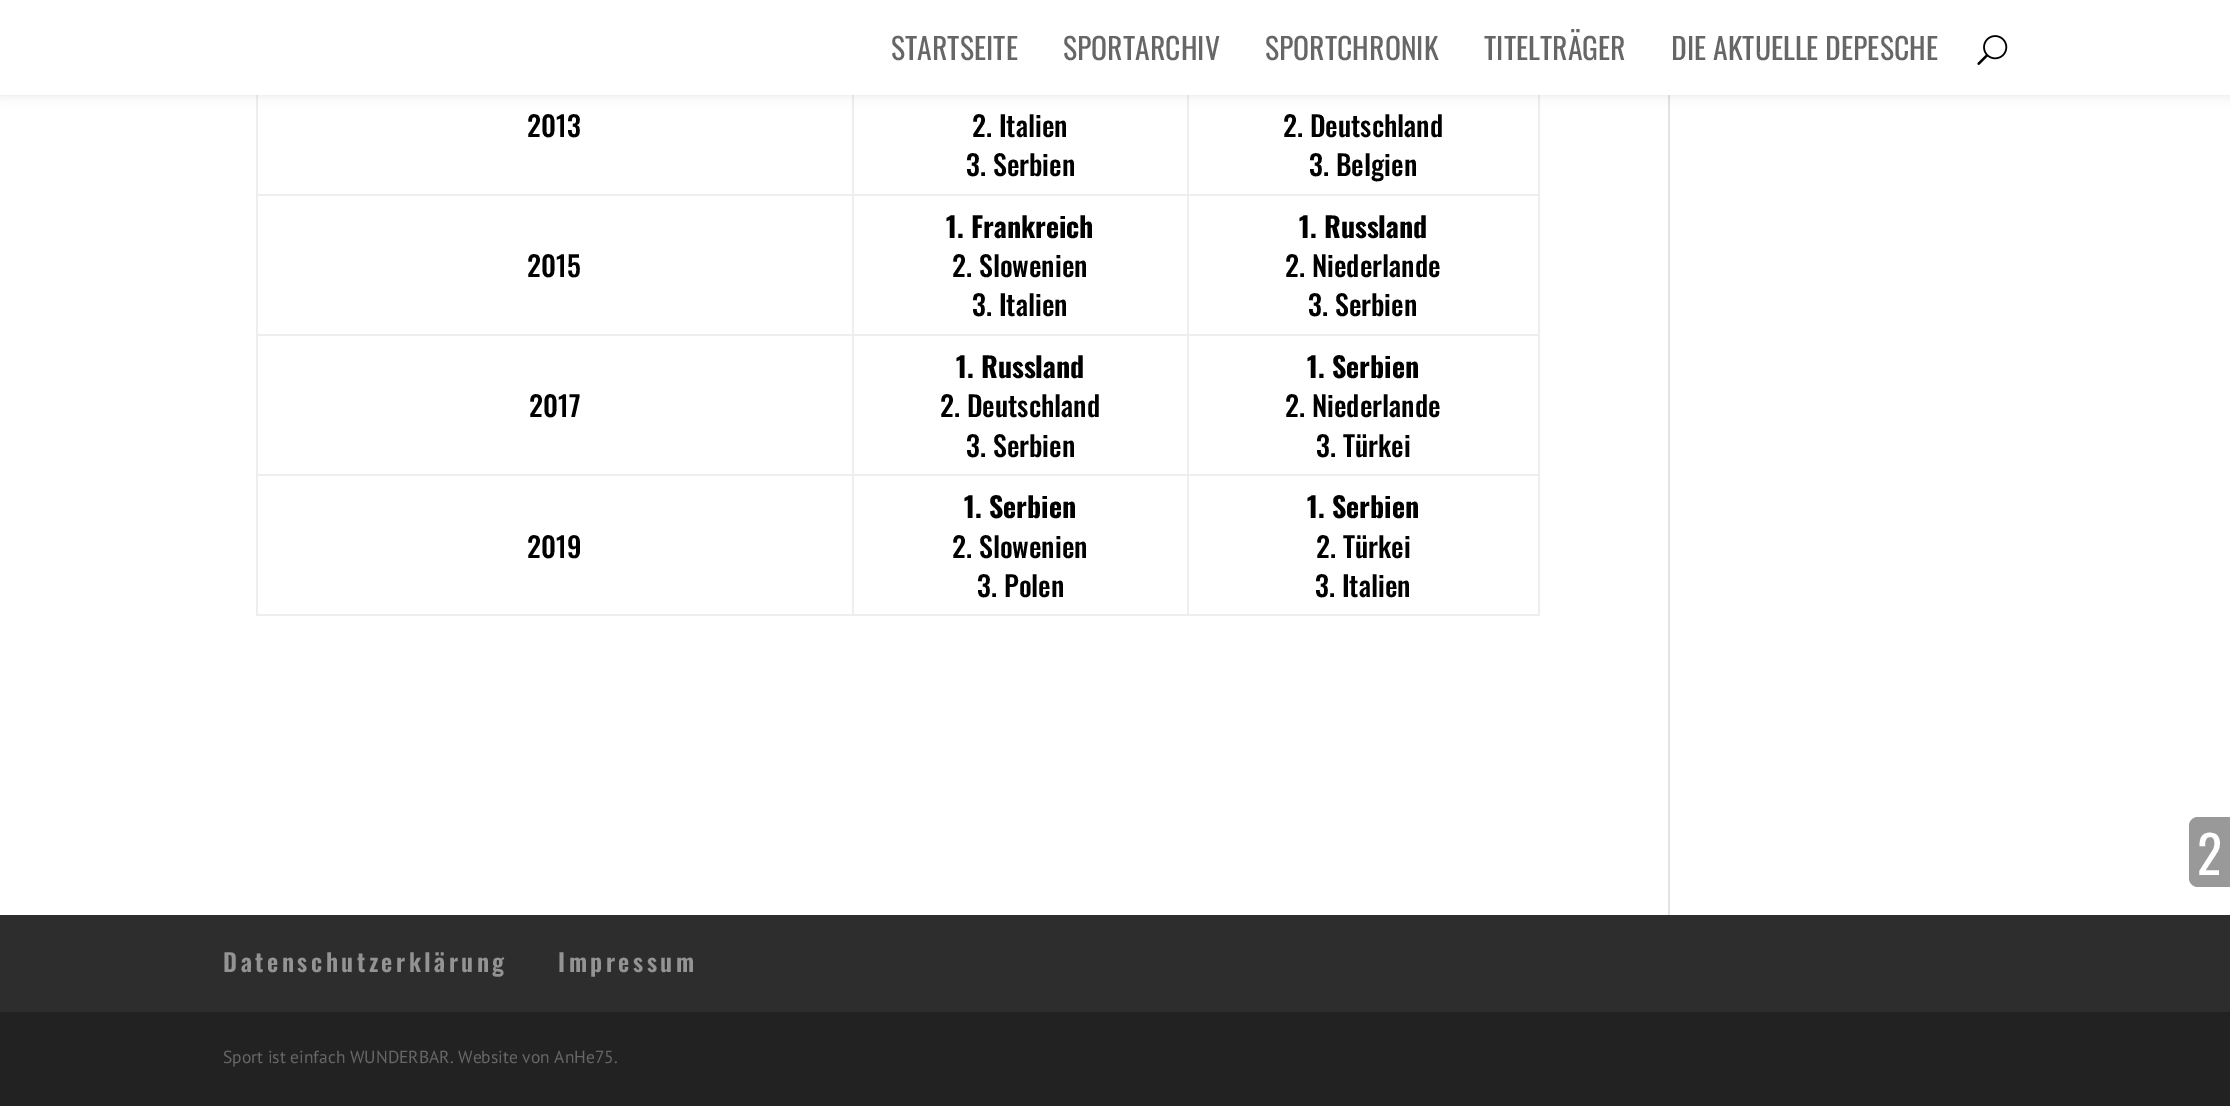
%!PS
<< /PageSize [2230 1106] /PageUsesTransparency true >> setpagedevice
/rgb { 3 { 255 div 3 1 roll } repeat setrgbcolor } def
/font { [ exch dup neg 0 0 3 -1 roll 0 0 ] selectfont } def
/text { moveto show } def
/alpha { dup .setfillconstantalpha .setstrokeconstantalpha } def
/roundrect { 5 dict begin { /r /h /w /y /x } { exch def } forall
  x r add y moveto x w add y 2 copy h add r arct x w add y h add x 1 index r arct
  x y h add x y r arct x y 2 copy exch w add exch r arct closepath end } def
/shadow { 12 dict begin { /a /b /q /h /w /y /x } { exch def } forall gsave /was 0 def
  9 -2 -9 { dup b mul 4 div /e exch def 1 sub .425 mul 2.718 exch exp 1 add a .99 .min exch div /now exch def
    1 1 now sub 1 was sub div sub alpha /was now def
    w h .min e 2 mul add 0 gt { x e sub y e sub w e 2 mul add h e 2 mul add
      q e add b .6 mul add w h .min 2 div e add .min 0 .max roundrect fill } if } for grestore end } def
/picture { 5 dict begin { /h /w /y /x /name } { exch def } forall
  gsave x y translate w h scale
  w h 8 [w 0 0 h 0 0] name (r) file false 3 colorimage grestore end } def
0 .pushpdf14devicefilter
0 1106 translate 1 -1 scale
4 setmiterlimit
255 255 255 rgb
0 0 2230 1106 rectfill
238 238 238 rgb
1538 95 2 521 rectfill
256 614 1284 2 rectfill
256 95 2 521 rectfill
1187 194 353 2 rectfill
1187 334 353 2 rectfill
1187 474 353 2 rectfill
1187 474 2 142 rectfill
852 474 336 2 rectfill
1187 334 2 142 rectfill
852 334 336 2 rectfill
1187 194 2 142 rectfill
852 194 336 2 rectfill
852 474 2 142 rectfill
256 474 598 2 rectfill
852 334 2 142 rectfill
256 334 598 2 rectfill
852 194 2 142 rectfill
256 194 598 2 rectfill
852 95 2 101 rectfill
1187 95 2 101 rectfill
226 226 226 rgb
1668 95 2 820 rectfill
0 0 0 rgb
0 0 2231 95 0 6 0.1 shadow
255 255 255 rgb
0 0 2230 95 rectfill
(img_01.rgb) 1977 35 31 30 picture
153 153 153 rgb
2198 817 moveto 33 0 rlineto 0 70 rlineto -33 0 rlineto -5 0 -9 -4 -9 -9 rcurveto 0 -52 rlineto 0 -5 4 -9 9 -9 rcurveto closepath fill
34 34 34 rgb
0 1012 2230 94 rectfill
45 45 45 rgb
0 915 2230 97 rectfill
/Oswald-Regular 29.75 font
102 102 102 rgb
(STARTSEITE) 891 60 text
(SPORTARCHIV) 1063 60 text
(SPORTCHRONIK) 1265 60 text
(TITELTRÄGER) 1484 60 text
(DIE AKTUELLE DEPESCHE) 1671 60 text
/Oswald-Medium 28 font
0 0 0 rgb
(2013) 527 137 text
(2. Italien) 972 137 text
(3. Serbien) 966 176 text
(2. Deutschland) 1283 137 text
(3. Belgien) 1309 176 text
(2015) 527 277 text
/Oswald-Bold 28 font
(1. Frankreich) 946 238 text
/Oswald-Medium 28 font
(2. Slowenien) 952 277 text
(3. Italien) 972 316 text
/Oswald-Bold 28 font
(1. Russland) 1299 238 text
/Oswald-Medium 28 font
(2. Niederlande) 1285 277 text
(3. Serbien) 1308 316 text
(2017) 529 417 text
/Oswald-Bold 28 font
(1. Russland) 956 378 text
/Oswald-Medium 28 font
(2. Deutschland) 940 417 text
(3. Serbien) 966 457 text
/Oswald-Bold 28 font
(1. Serbien) 1307 378 text
/Oswald-Medium 28 font
(2. Niederlande) 1285 417 text
(3. Türkei) 1316 457 text
(2019) 527 558 text
/Oswald-Bold 28 font
(1. Serbien) 964 518 text
/Oswald-Medium 28 font
(2. Slowenien) 952 558 text
(3. Polen) 977 597 text
/Oswald-Bold 28 font
(1. Serbien) 1307 518 text
/Oswald-Medium 28 font
(2. Türkei) 1316 558 text
(3. Italien) 1315 597 text
/Oswald-Regular 52 font
255 255 255 rgb
(2) 2197 875 text
/Oswald-SemiBold 24.5 font
147 147 147 rgb
223 972 moveto 3.5 0 (Datenschutzerklärung) ashow
558 972 moveto 3.5 0 (Impressum) ashow
/PTSans-Regular 17.5 font
102 102 102 rgb
(Sport ist einfach WUNDERBAR. Website von AnHe75.) 223 1063 text
.poppdf14devicefilter showpage
